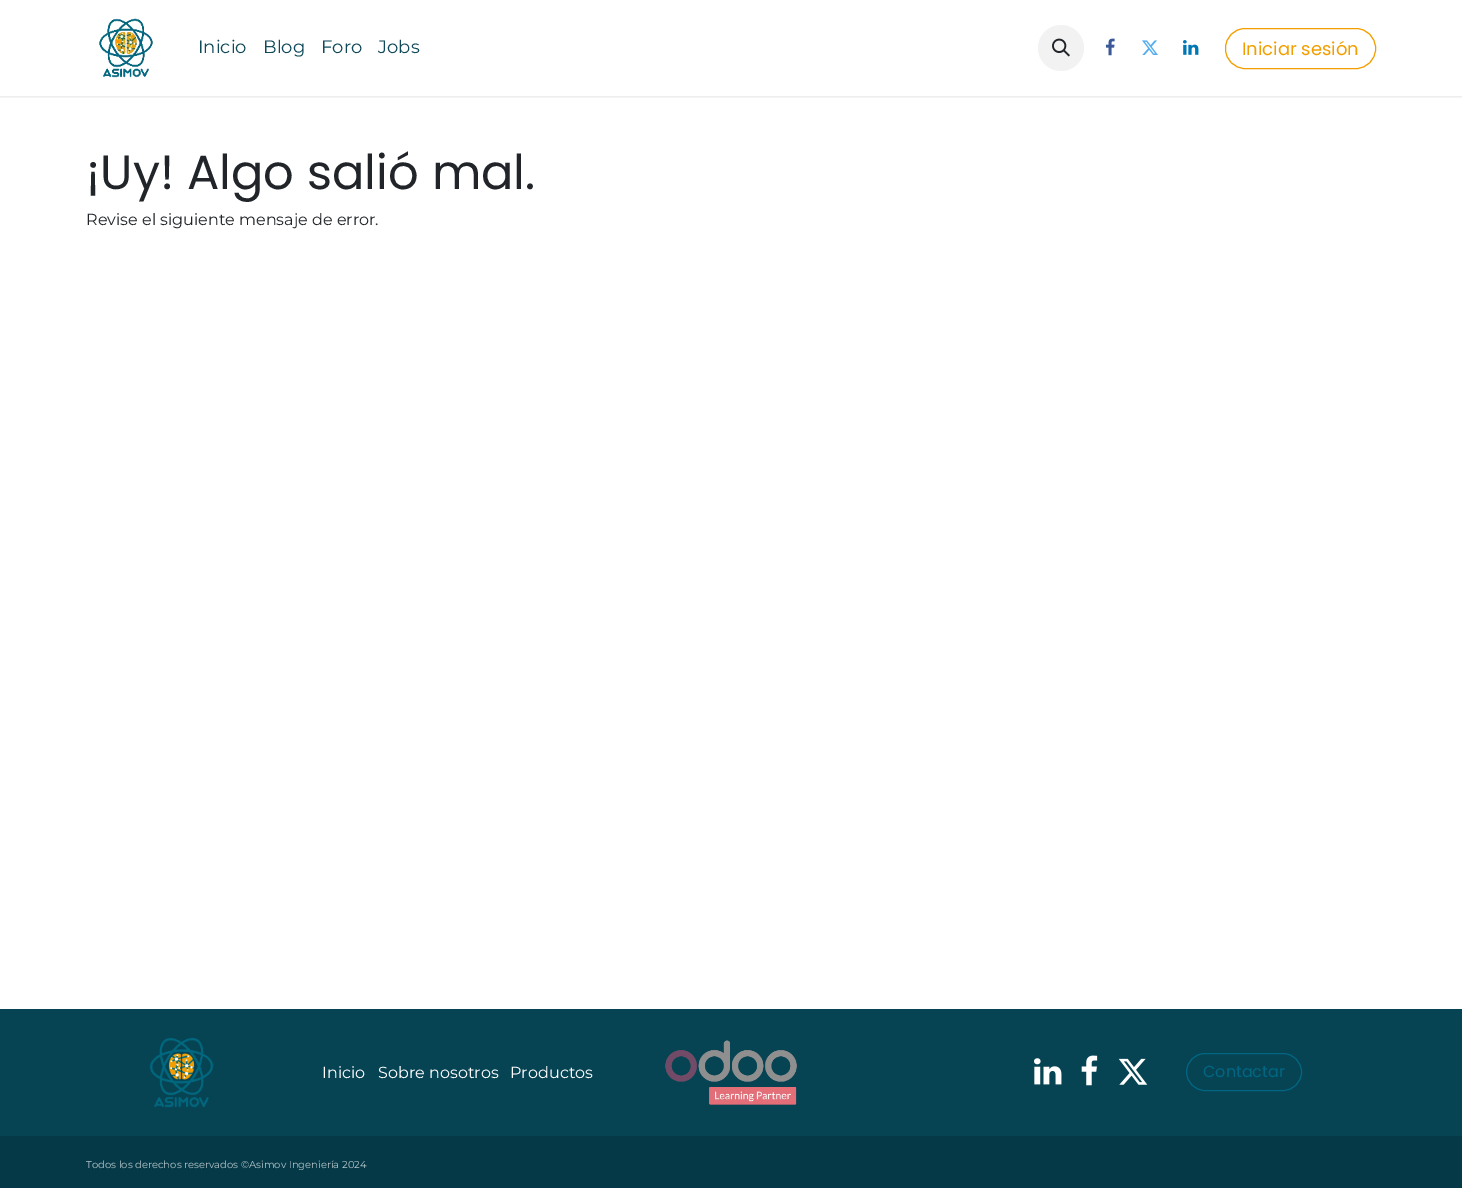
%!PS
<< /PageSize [1462 1188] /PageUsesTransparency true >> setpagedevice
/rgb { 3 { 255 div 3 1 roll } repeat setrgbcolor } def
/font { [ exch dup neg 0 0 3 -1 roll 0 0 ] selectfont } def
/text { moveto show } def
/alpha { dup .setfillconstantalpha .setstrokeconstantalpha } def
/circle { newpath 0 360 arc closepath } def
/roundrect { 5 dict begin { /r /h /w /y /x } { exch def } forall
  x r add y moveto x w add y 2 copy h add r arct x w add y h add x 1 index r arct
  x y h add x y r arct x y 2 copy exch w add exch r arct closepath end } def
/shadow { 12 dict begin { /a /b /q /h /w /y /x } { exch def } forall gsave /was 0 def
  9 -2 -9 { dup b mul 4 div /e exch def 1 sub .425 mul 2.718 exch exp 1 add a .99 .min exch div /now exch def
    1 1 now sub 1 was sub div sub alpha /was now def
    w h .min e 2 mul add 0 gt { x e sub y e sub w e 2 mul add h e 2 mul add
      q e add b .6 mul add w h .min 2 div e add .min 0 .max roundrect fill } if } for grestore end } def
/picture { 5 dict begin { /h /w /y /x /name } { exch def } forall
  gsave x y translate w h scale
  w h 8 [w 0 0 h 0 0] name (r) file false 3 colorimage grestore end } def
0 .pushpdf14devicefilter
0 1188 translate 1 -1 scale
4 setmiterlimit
255 255 255 rgb
0 0 1462 1188 rectfill
gsave
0 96 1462 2 rectclip
0 0 0 rgb
0 1 1462 96 0 1.5 0.1 shadow
grestore
(img_01.rgb) 99 18 54 60 picture
242 242 242 rgb
1061 48 23 circle fill
(img_02.rgb) 1052 38 18 19 picture
(img_03.rgb) 1105 38 10 18 picture
(img_04.rgb) 1142 40 16 15 picture
(img_05.rgb) 1183 40 16 15 picture
242 158 0 rgb
1225.5 28.5 150 40 19.5 roundrect stroke
6 67 83 rgb
0 1009 1462 127 rectfill
(img_06.rgb) 149 1037 65 71 picture
(img_07.rgb) 665 1040 132 65 picture
(img_08.rgb) 1034 1058 28 27 picture
(img_09.rgb) 1081 1055 17 31 picture
(img_10.rgb) 1118 1058 30 27 picture
1 102 130 rgb
1186.5 1053.5 115 37 18.5 roundrect stroke
5 57 71 rgb
0 1136 1462 52 rectfill
/Montserrat-Regular 18 font
16 74 90 rgb
(Inicio) 198 53 text
(Blog) 263 53 text
(Foro) 321 53 text
(Jobs) 378 53 text
/Poppins-Regular 18 font
242 158 0 rgb
(Iniciar sesión) 1242 55 text
/Poppins-Regular 48 font
33 37 41 rgb
(¡Uy! Algo salió mal.) 86 189 text
/Montserrat-Regular 16 font
(Revise el siguiente mensaje de error.) 86 225 text
255 255 255 rgb
(Inicio) 322 1078 text
(Sobre nosotros) 378 1078 text
(Productos) 510 1078 text
/Poppins-Regular 16 font
1 102 130 rgb
(Contactar) 1203 1077 text
/Montserrat-Regular 10 font
180 196 200 rgb
(Todos los derechos reservados ©Asimov Ingeniería 2024) 86 1168 text
.poppdf14devicefilter showpage
